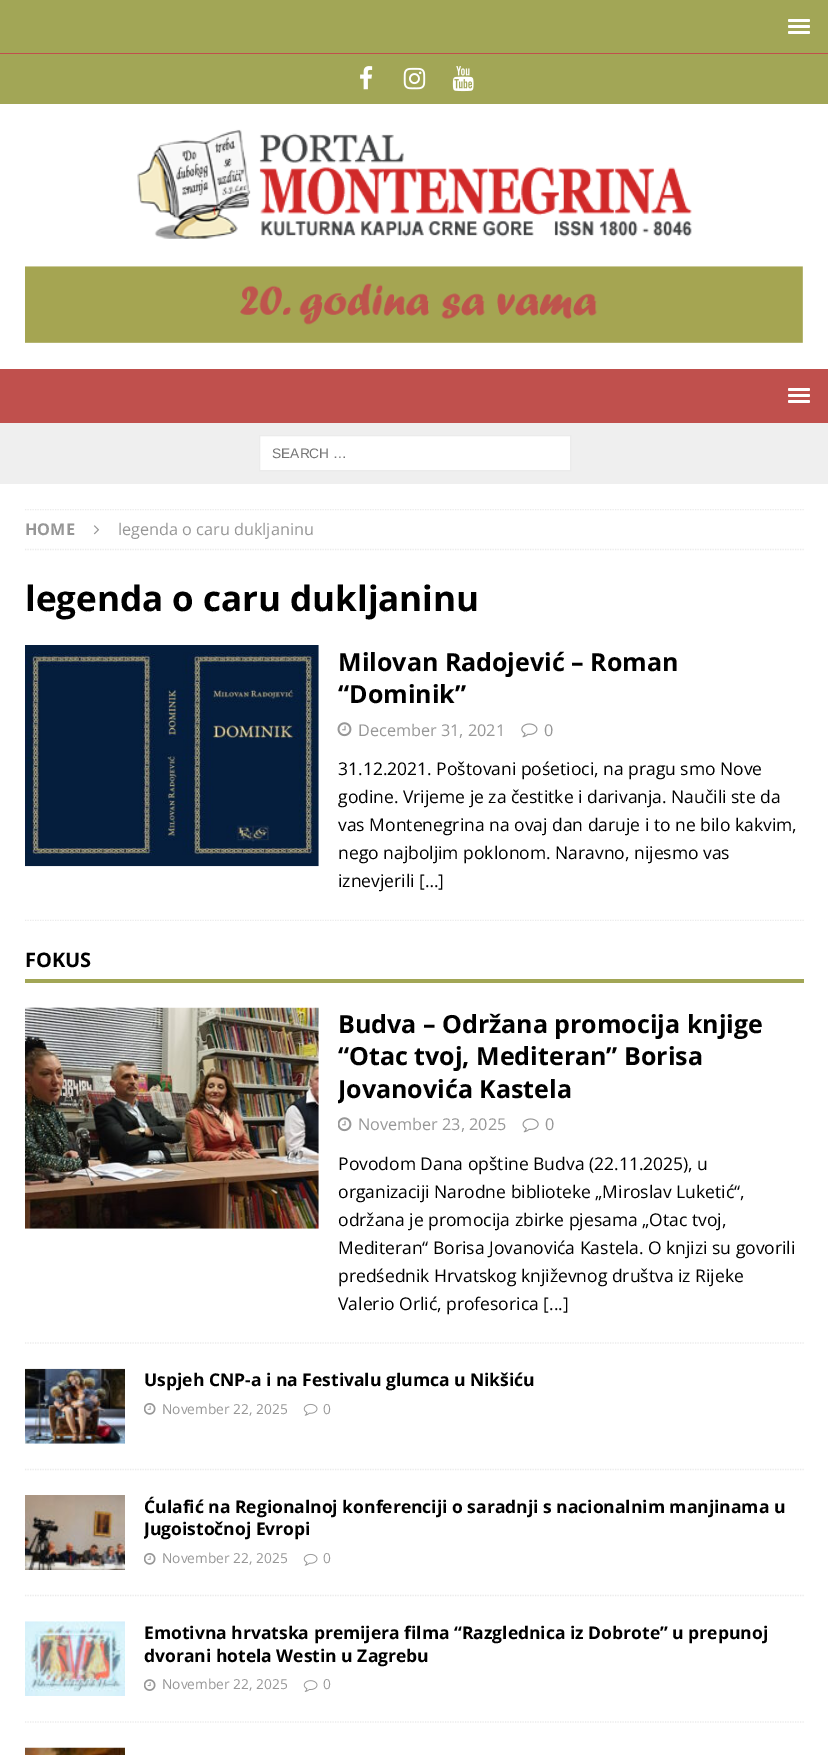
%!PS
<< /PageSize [828 1755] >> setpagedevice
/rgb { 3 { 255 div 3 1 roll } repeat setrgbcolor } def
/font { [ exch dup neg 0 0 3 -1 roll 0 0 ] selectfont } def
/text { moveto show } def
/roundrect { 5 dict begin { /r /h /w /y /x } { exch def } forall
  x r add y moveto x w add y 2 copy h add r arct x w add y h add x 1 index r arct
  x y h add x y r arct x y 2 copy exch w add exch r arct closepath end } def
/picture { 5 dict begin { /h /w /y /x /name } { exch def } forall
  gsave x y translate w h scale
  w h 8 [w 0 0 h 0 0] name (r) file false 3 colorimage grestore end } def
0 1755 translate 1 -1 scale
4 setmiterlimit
162 166 86 rgb
0 0 828 1755 rectfill
192 80 77 rgb
0 53 828 1 rectfill
255 255 255 rgb
788 19 22 3 1.5 roundrect fill
788 25 22 3 1.5 roundrect fill
788 31 22 3 1.5 roundrect fill
(img_01.rgb) 360 66 13 24 picture
(img_02.rgb) 403 67 23 23 picture
(img_03.rgb) 452 66 22 26 picture
0 104 828 265 rectfill
(img_04.rgb) 137 129 555 110 picture
(img_05.rgb) 25 266 778 77 picture
192 80 77 rgb
0 369 828 54 rectfill
255 255 255 rgb
788 388 22 3 1.5 roundrect fill
788 394 22 3 1.5 roundrect fill
788 400 22 3 1.5 roundrect fill
239 239 239 rgb
0 423 828 61 rectfill
255 255 255 rgb
259.5 435.5 moveto 311 0 rlineto 0 35 rlineto -311 0 rlineto closepath gsave fill grestore
235 235 235 rgb
stroke
255 255 255 rgb
0 484 828 1271 rectfill
gsave
25 509 779 412 rectclip
235 235 235 rgb
1.2 setlinewidth
[1.25 1.25] 0 setdash
25 509.5 moveto 779 0 rlineto stroke
grestore
235 235 235 rgb
1.2 setlinewidth
[1.25 1.25] 0 setdash
25 549.5 moveto 779 0 rlineto stroke
(img_06.rgb) 93 525 7 10 picture
gsave
25 509 779 412 rectclip
25 920.5 moveto 779 0 rlineto stroke
grestore
(img_07.rgb) 25 645 294 222 picture
(img_08.rgb) 337 722 15 15 picture
(img_09.rgb) 521 723 17 15 picture
162 166 86 rgb
25 979 779 4 rectfill
235 235 235 rgb
25 1343 moveto 779 0 rlineto stroke
(img_10.rgb) 25 1007 294 222 picture
(img_11.rgb) 338 1117 14 15 picture
(img_12.rgb) 522 1118 17 15 picture
25 1469.5 moveto 779 0 rlineto stroke
(img_13.rgb) 25 1368 100 76 picture
(img_14.rgb) 144 1403 12 12 picture
(img_15.rgb) 303 1403 15 13 picture
25 1595.5 moveto 779 0 rlineto stroke
(img_16.rgb) 25 1495 100 75 picture
(img_14.rgb) 144 1553 12 12 picture
(img_15.rgb) 303 1553 15 13 picture
25 1722 moveto 779 0 rlineto stroke
(img_17.rgb) 25 1621 100 75 picture
(img_18.rgb) 144 1679 12 12 picture
(img_19.rgb) 303 1680 15 12 picture
(img_20.rgb) 25 1747 100 8 picture
/LiberationSans-Regular 13.75 font
117 117 117 rgb
(SEARCH …) 272 458 text
/OpenSans-Bold 16.25 font
151 151 151 rgb
(HOME) 25 535 text
/OpenSans-Regular 16.25 font
(legenda o caru dukljaninu) 118 535 text
/OpenSans-Bold 35 font
0 0 0 rgb
(legenda o caru dukljaninu) 25 611 text
/OpenSans-Bold 25 font
(Milovan Radojević – Roman) 338 671 text
(“Dominik”) 338 703 text
/OpenSans-Regular 16.25 font
151 151 151 rgb
(December 31, 2021) 358 736 text
(0) 544 736 text
/OpenSans-Regular 17.5 font
0 0 0 rgb
(31.12.2021. Poštovani pośetioci, na pragu smo Nove) 338 775 text
(godine. Vrijeme je za čestitke i darivanja. Naučili ste da) 338 803 text
(vas Montenegrina na ovaj dan daruje i to ne bilo kakvim,) 338 831 text
(nego najboljim poklonom. Naravno, nijesmo vas) 338 859 text
(iznevjerili […]) 338 887 text
/OpenSans-Bold 20 font
(FOKUS) 25 967 text
/OpenSans-Bold 25 font
(Budva – Održana promocija knjige) 338 1033 text
(“Otac tvoj, Mediteran” Borisa) 338 1065 text
gsave
338 1008 466 130 rectclip
(Jovanovića Kastela) 338 1098 text
grestore
/OpenSans-Regular 16.25 font
151 151 151 rgb
(November 23, 2025) 358 1130 text
(0) 545 1130 text
/OpenSans-Regular 17.5 font
0 0 0 rgb
(Povodom Dana opštine Budva \(22.11.2025\), u) 338 1170 text
(organizaciji Narodne biblioteke „Miroslav Luketić“,) 338 1198 text
(održana je promocija zbirke pjesama „Otac tvoj,) 338 1226 text
(Mediteran“ Borisa Jovanovića Kastela. O knjizi su govorili) 338 1254 text
(predśednik Hrvatskog književnog društva iz Rijeke) 338 1282 text
(Valerio Orlić, profesorica [...]) 338 1310 text
/OpenSans-Bold 17.5 font
(Uspjeh CNP-a i na Festivalu glumca u Nikšiću) 144 1386 text
/OpenSans-Regular 13.75 font
151 151 151 rgb
(November 22, 2025) 162 1414 text
(0) 323 1414 text
/OpenSans-Bold 17.5 font
0 0 0 rgb
(Ćulafić na Regionalnoj konferenciji o saradnji s nacionalnim manjinama u) 144 1513 text
gsave
144 1495 660 74 rectclip
(Jugoistočnoj Evropi) 144 1535 text
grestore
/OpenSans-Regular 13.75 font
151 151 151 rgb
(November 22, 2025) 162 1563 text
(0) 323 1563 text
/OpenSans-Bold 17.5 font
0 0 0 rgb
(Emotivna hrvatska premijera filma “Razglednica iz Dobrote” u prepunoj) 144 1639 text
(dvorani hotela Westin u Zagrebu) 144 1662 text
/OpenSans-Regular 13.75 font
151 151 151 rgb
(November 22, 2025) 162 1689 text
(0) 323 1689 text
showpage
